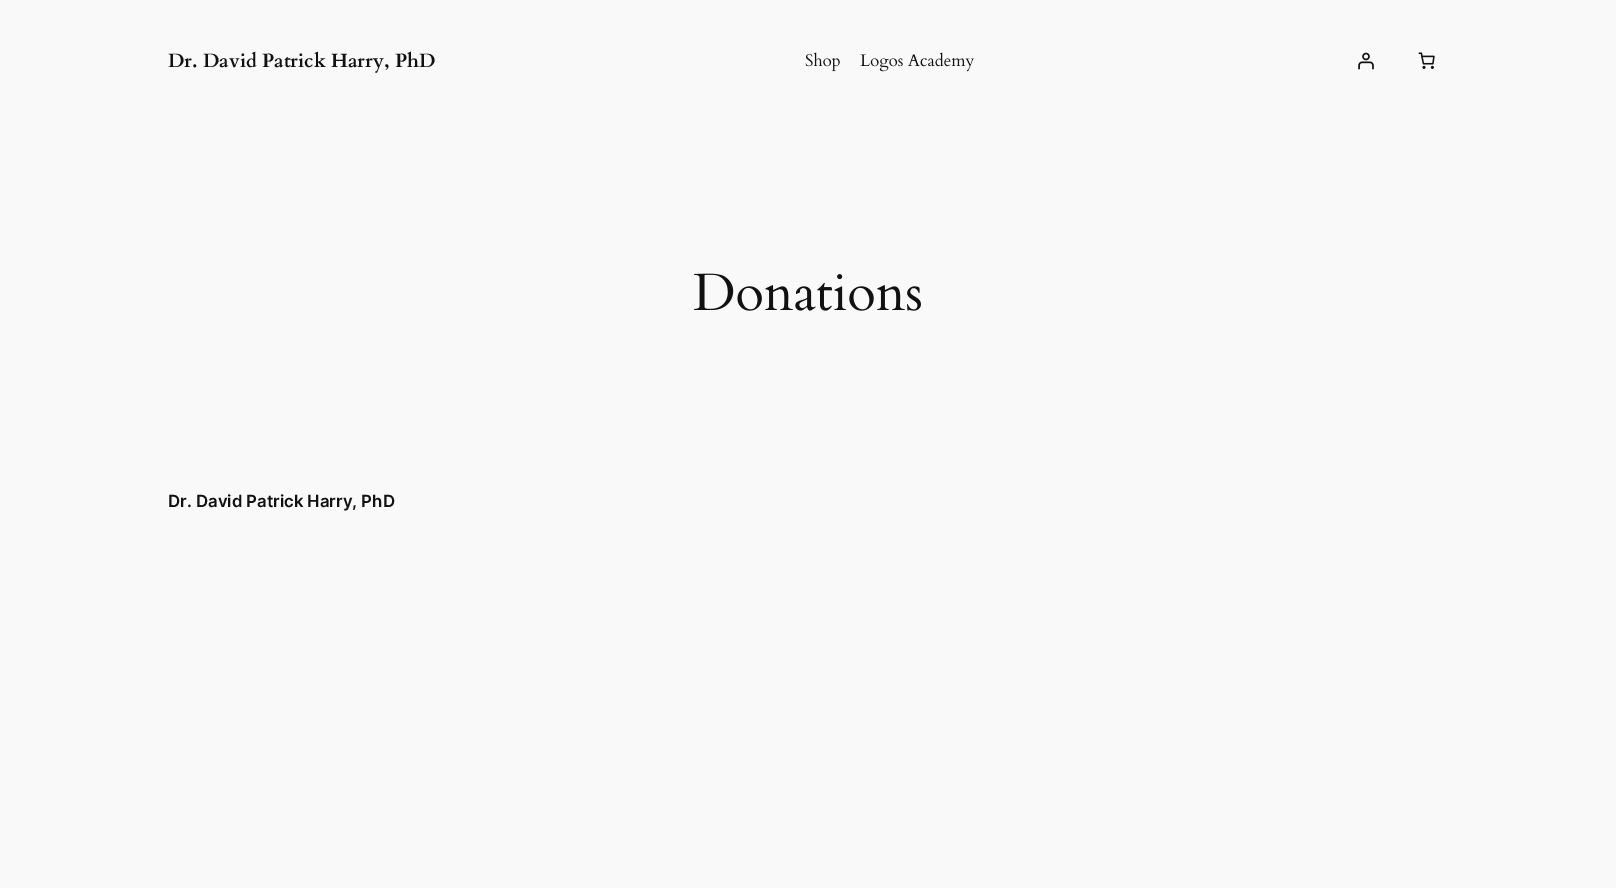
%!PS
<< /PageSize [1616 888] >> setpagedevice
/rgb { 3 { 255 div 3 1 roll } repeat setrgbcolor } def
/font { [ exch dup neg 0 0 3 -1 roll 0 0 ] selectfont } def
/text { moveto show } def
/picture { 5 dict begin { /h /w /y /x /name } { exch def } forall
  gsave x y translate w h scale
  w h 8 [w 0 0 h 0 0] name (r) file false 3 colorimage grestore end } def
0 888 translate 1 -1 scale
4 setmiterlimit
249 249 249 rgb
0 0 1616 888 rectfill
(img_01.rgb) 805 52 35 20 picture
(img_02.rgb) 860 52 115 20 picture
(img_03.rgb) 1358 52 16 18 picture
(img_04.rgb) 1418 52 17 17 picture
(img_05.rgb) 694 273 227 38 picture
/Cardo-Bold 19.25 font
17 17 17 rgb
(Dr. David Patrick Harry, PhD) 168 67 text
/Inter-SemiBold 16.75 font
(Dr. David Patrick Harry, PhD) 168 507 text
showpage
